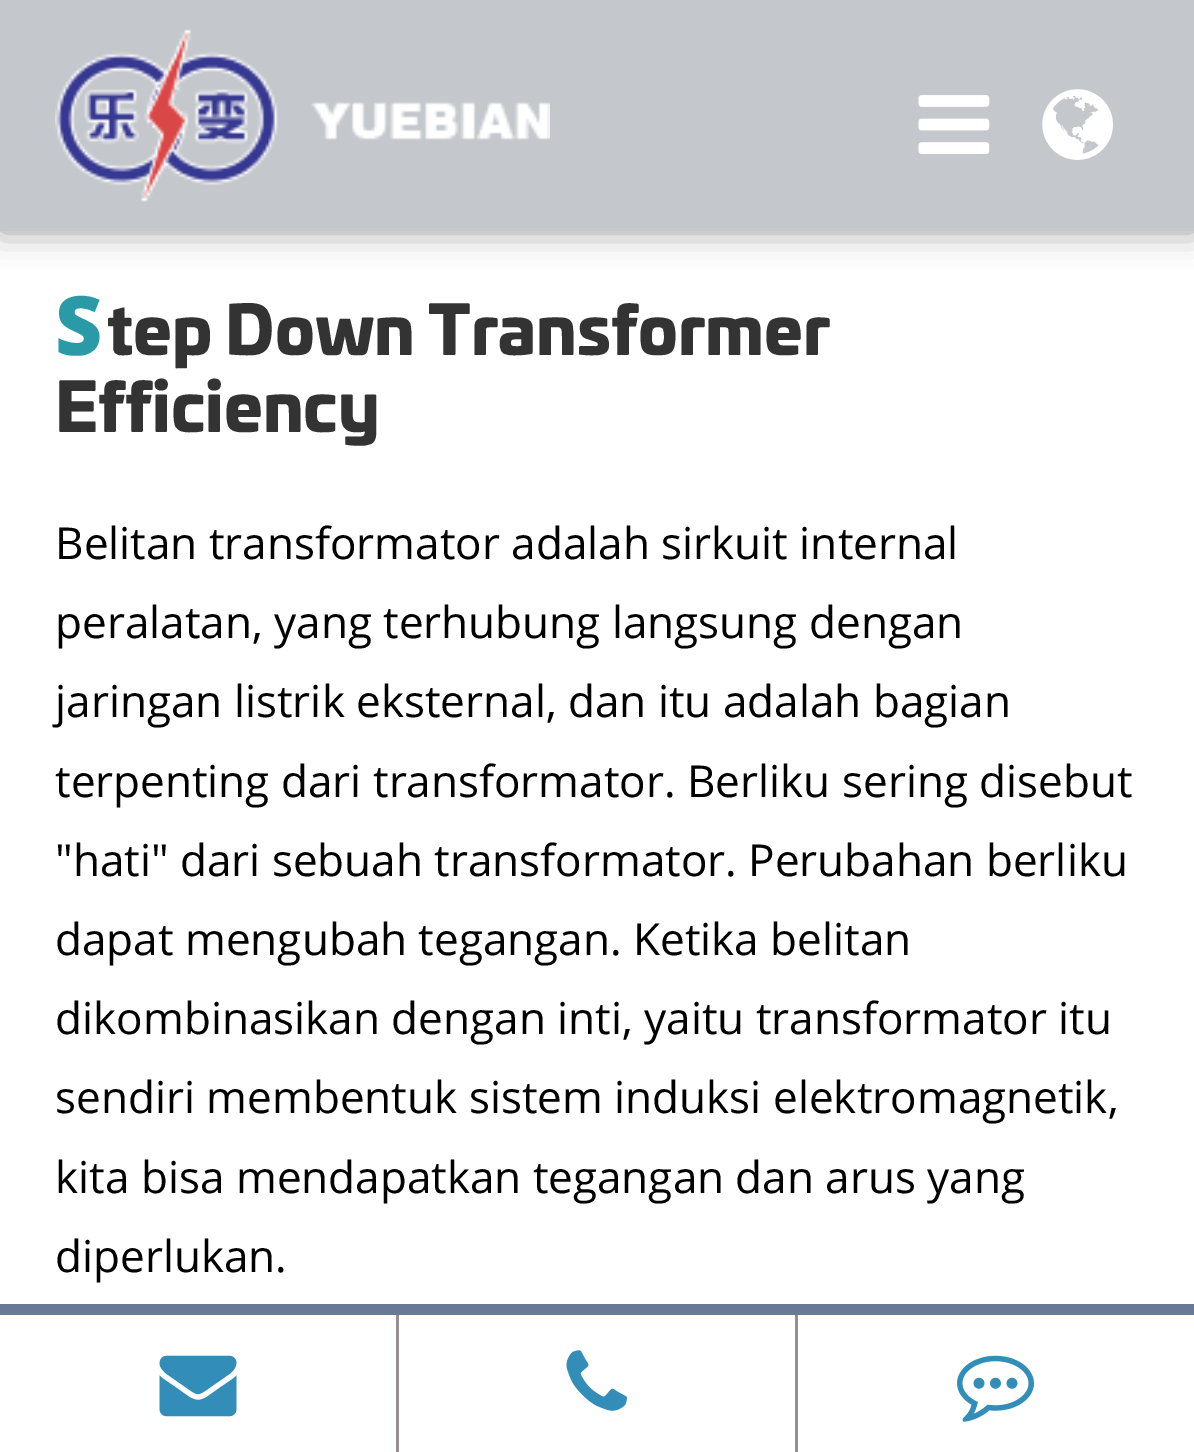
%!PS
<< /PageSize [1194 1452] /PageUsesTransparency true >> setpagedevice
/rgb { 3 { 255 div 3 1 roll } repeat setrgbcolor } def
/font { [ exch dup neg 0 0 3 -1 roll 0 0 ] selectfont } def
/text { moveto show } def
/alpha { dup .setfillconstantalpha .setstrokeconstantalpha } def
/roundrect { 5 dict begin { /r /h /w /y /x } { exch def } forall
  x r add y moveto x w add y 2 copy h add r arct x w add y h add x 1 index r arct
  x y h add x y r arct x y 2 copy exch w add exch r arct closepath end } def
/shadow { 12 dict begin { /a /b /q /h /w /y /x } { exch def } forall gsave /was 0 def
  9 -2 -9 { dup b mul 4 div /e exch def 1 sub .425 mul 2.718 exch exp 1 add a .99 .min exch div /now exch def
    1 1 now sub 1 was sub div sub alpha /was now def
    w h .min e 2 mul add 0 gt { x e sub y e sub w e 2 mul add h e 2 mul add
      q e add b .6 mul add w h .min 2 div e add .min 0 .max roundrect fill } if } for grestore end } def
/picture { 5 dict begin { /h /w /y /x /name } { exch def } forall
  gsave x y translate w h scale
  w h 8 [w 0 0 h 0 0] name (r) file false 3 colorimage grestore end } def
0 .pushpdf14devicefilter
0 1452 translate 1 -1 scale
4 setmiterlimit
255 255 255 rgb
0 0 1194 1452 rectfill
0 0 0 rgb
0 0 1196 231 0 16.5 0.4 shadow
196 199 203 rgb
0 0 1194 231 rectfill
(img_01.rgb) 55 29 495 173 picture
(img_02.rgb) 918 95 72 59 picture
(img_03.rgb) 1042 89 71 71 picture
105 120 151 rgb
0 1304 1194 11 rectfill
149 144 144 rgb
396 1315 3 137 rectfill
(img_04.rgb) 159 1355 78 62 picture
795 1315 3 137 rectfill
(img_05.rgb) 566 1350 61 61 picture
(img_06.rgb) 957 1355 77 67 picture
/NotoSans-Black 82 font
42 155 166 rgb
(S) 55 355 text
/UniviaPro-Black 66 font
51 51 51 rgb
(tep Down Transformer) 107 355 text
(Efficiency) 55 432 text
/OpenSans-Regular 44 font
0 0 0 rgb
(Belitan transformator adalah sirkuit internal) 55 559 text
(peralatan, yang terhubung langsung dengan) 55 638 text
(jaringan listrik eksternal, dan itu adalah bagian) 55 717 text
(terpenting dari transformator. Berliku sering disebut) 55 797 text
("hati" dari sebuah transformator. Perubahan berliku) 55 876 text
(dapat mengubah tegangan. Ketika belitan) 55 955 text
(dikombinasikan dengan inti, yaitu transformator itu) 55 1034 text
(sendiri membentuk sistem induksi elektromagnetik,) 55 1113 text
(kita bisa mendapatkan tegangan dan arus yang) 55 1193 text
(diperlukan.) 55 1272 text
.poppdf14devicefilter showpage
